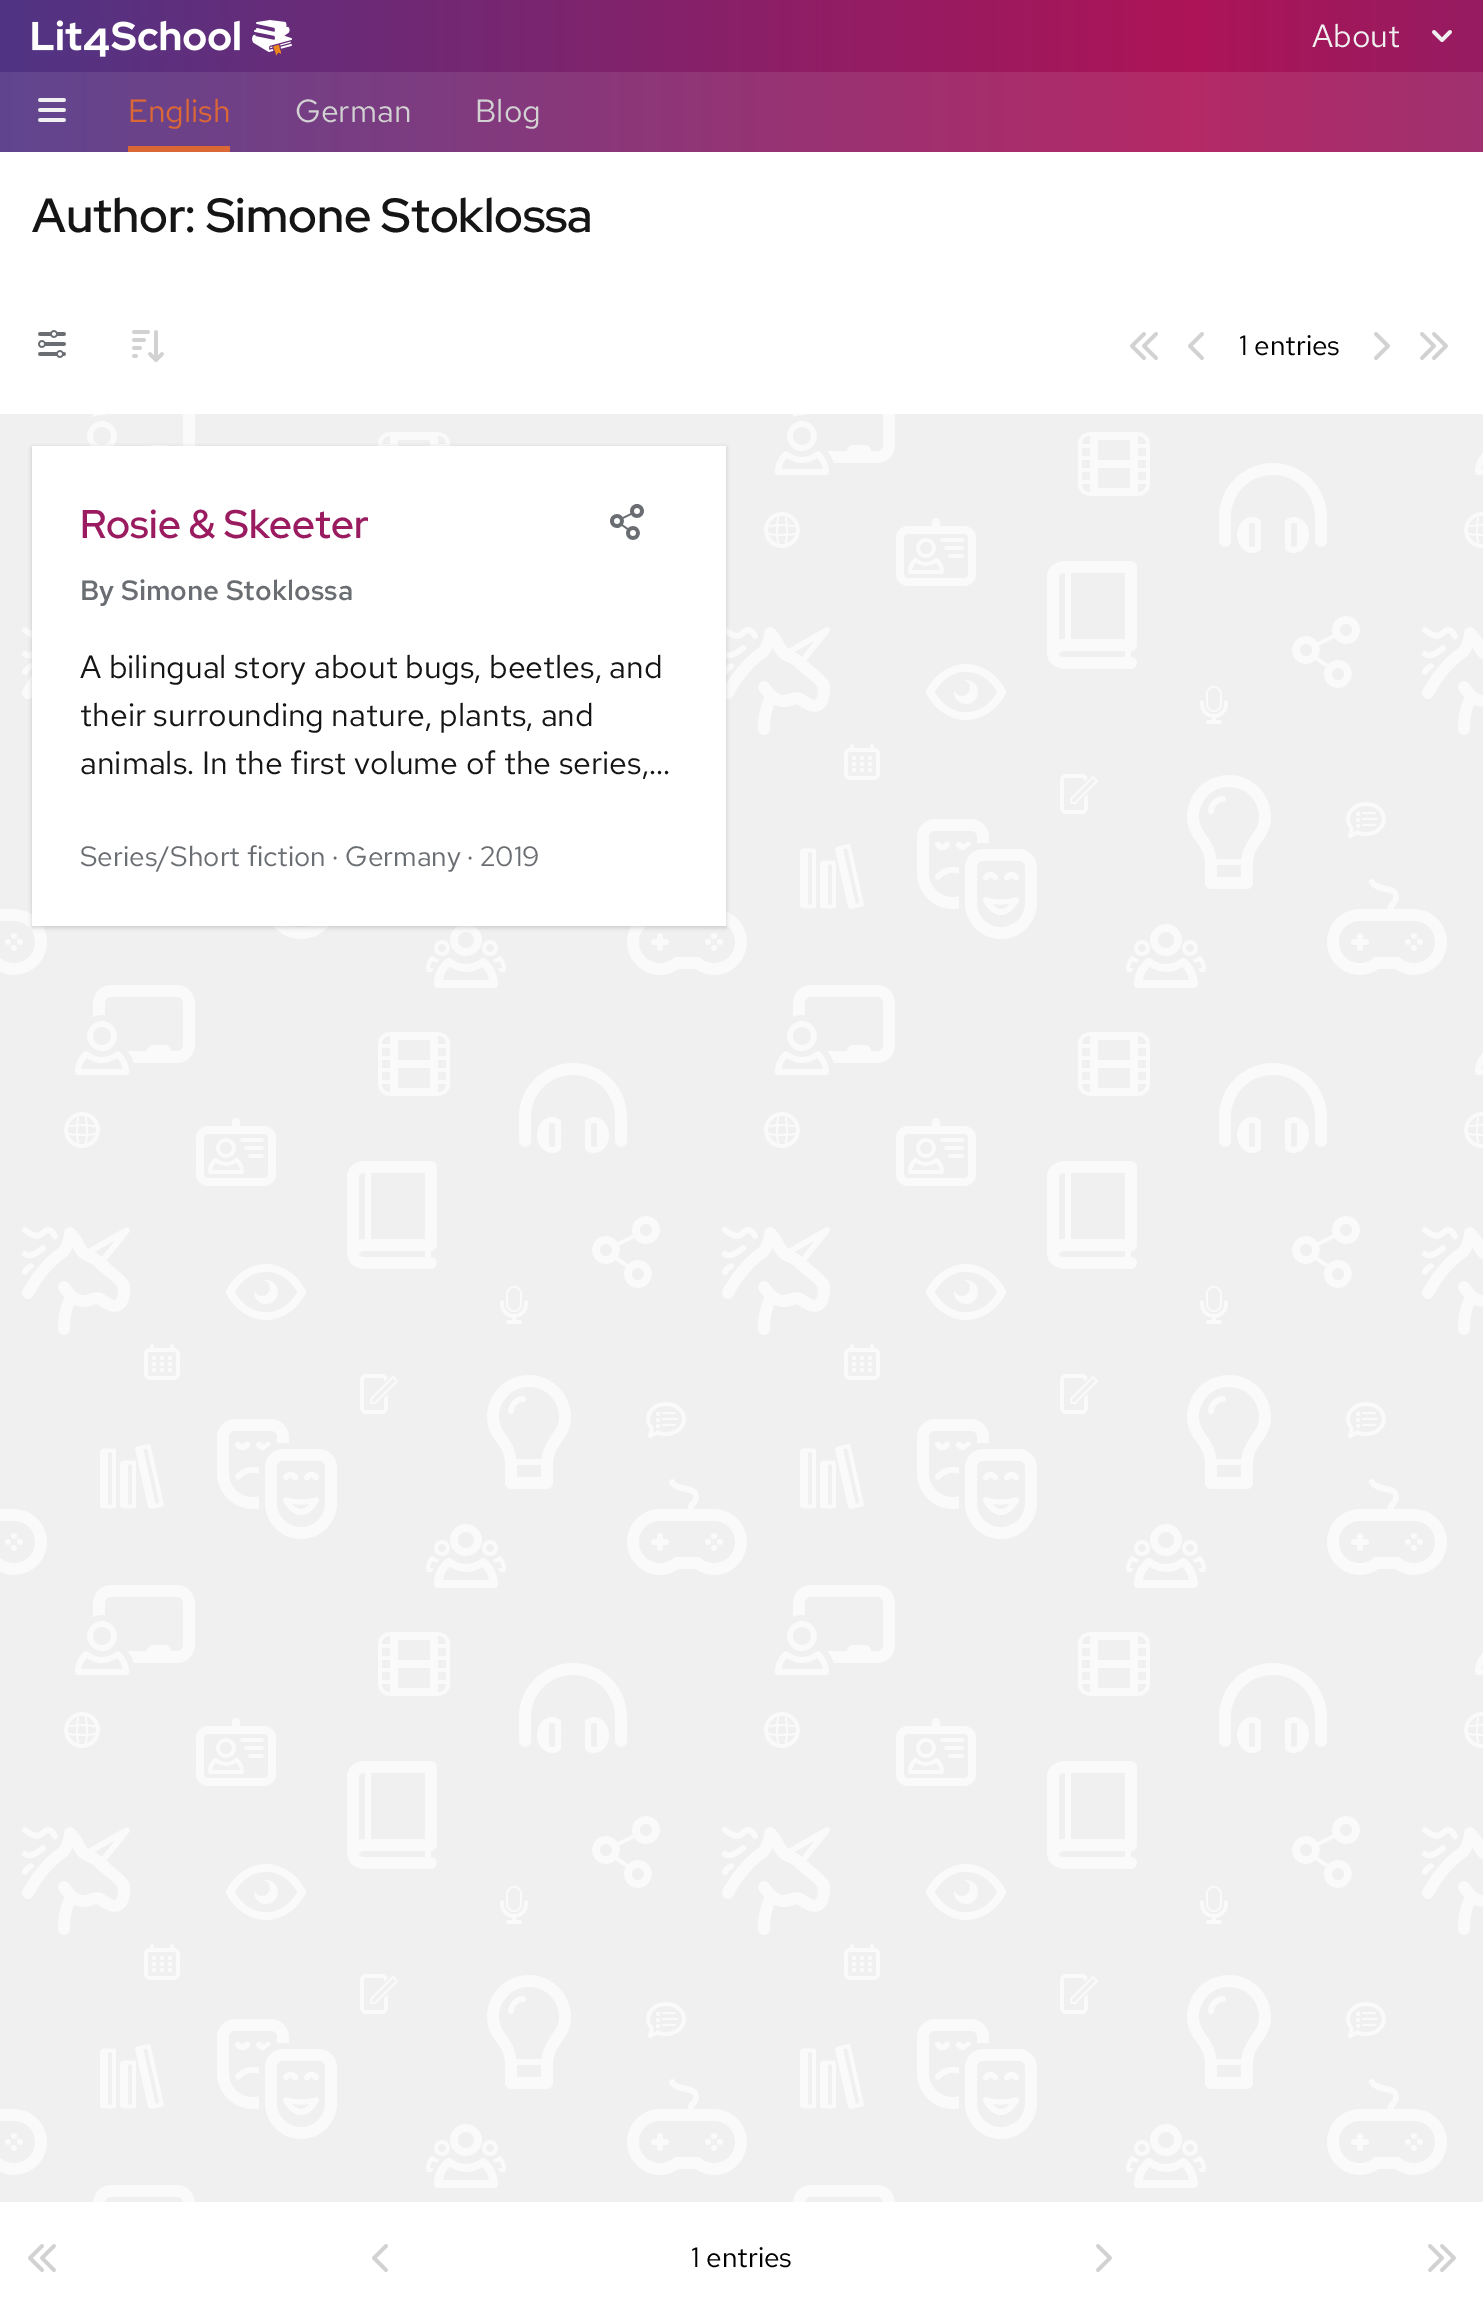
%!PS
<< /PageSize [1483 2314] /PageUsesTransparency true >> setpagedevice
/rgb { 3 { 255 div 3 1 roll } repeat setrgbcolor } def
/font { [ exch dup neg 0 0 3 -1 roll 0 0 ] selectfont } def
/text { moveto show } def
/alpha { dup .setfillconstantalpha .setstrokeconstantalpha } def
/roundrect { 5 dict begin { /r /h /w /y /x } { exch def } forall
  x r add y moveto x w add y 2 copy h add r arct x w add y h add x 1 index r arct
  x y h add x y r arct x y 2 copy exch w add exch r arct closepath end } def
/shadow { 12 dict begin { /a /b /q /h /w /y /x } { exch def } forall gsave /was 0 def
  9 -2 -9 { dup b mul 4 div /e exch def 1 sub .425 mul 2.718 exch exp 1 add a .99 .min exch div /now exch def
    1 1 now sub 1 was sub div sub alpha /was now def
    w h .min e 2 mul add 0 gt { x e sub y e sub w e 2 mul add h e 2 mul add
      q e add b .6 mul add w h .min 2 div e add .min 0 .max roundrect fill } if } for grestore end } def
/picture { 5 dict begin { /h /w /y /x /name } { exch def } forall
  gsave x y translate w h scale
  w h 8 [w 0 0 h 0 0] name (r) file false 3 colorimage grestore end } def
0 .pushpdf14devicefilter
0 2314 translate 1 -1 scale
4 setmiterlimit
240 240 240 rgb
0 0 1483 2314 rectfill
gsave 0 0 moveto 1483 0 rlineto 0 72 rlineto -1483 0 rlineto closepath clip newpath
<< /ShadingType 2 /ColorSpace /DeviceRGB /Coords [0 76 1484 76] /Extend [true true] /Function << /FunctionType 3 /Domain [0 1] /Functions [<< /FunctionType 2 /Domain [0 1] /C0 [0.314 0.204 0.518] /C1 [0.678 0.078 0.341] /N 1 >> << /FunctionType 2 /Domain [0 1] /C0 [0.678 0.078 0.341] /C1 [0.588 0.11 0.384] /N 1 >>] /Bounds [0.8] /Encode [0 1 0 1] >> >> shfill grestore
(img_01.rgb) 32 20 260 37 picture
(img_02.rgb) 1432 30 20 12 picture
gsave 0 72 moveto 1483 0 rlineto 0 80 rlineto -1483 0 rlineto closepath clip newpath
<< /ShadingType 2 /ColorSpace /DeviceRGB /Coords [0 112 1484 112] /Extend [true true] /Function << /FunctionType 3 /Domain [0 1] /Functions [<< /FunctionType 2 /Domain [0 1] /C0 [0.376 0.275 0.561] /C1 [0.706 0.161 0.4] /N 1 >> << /FunctionType 2 /Domain [0 1] /C0 [0.706 0.161 0.4] /C1 [0.627 0.192 0.439] /N 1 >>] /Bounds [0.8] /Encode [0 1 0 1] >> >> shfill grestore
(img_03.rgb) 38 98 28 24 picture
219 104 52 rgb
128 146 102 6 rectfill
255 255 255 rgb
0 152 1483 262 rectfill
(img_04.rgb) 38 330 28 28 picture
(img_05.rgb) 132 330 32 32 picture
(img_06.rgb) 1130 332 28 28 picture
(img_07.rgb) 1188 332 16 28 picture
(img_08.rgb) 1374 332 16 28 picture
(img_09.rgb) 1420 332 28 28 picture
(img_10.rgb) 0 414 1483 1788 picture
3 3 3 rgb
32 446 694 480 0 2 0.06 shadow
32 448 694 480 0 2 0.12 shadow
255 255 255 rgb
32 446 694 480 rectfill
(img_11.rgb) 610 504 34 36 picture
0 2202 1483 112 rectfill
(img_06.rgb) 28 2244 28 28 picture
(img_07.rgb) 372 2244 16 28 picture
(img_08.rgb) 1096 2244 16 28 picture
(img_09.rgb) 1428 2244 28 28 picture
/RedHatText-Regular 32 font
240 240 240 rgb
(About) 1312 47 text
219 104 52 rgb
(English) 128 122 text
210 210 210 rgb
(German) 295 122 text
(Blog) 475 122 text
/RedHatDisplay-Medium 48 font
21 21 21 rgb
(Author: Simone Stoklossa) 32 232 text
/RedHatText-Regular 28 font
0 0 0 rgb
(1 entries) 1239 355 text
/RedHatDisplay-Medium 40 font
154 27 96 rgb
(Rosie & Skeeter) 80 538 text
/RedHatText-Medium 28 font
106 110 115 rgb
(By Simone Stoklossa) 80 600 text
/RedHatText-Regular 32 font
21 21 21 rgb
(A bilingual story about bugs, beetles, and) 80 678 text
(their surrounding nature, plants, and) 80 726 text
(animals. In the first volume of the series,…) 80 774 text
/RedHatText-Regular 28 font
106 110 115 rgb
(Series/Short fiction · Germany · 2019) 80 866 text
0 0 0 rgb
(1 entries) 691 2267 text
.poppdf14devicefilter showpage
